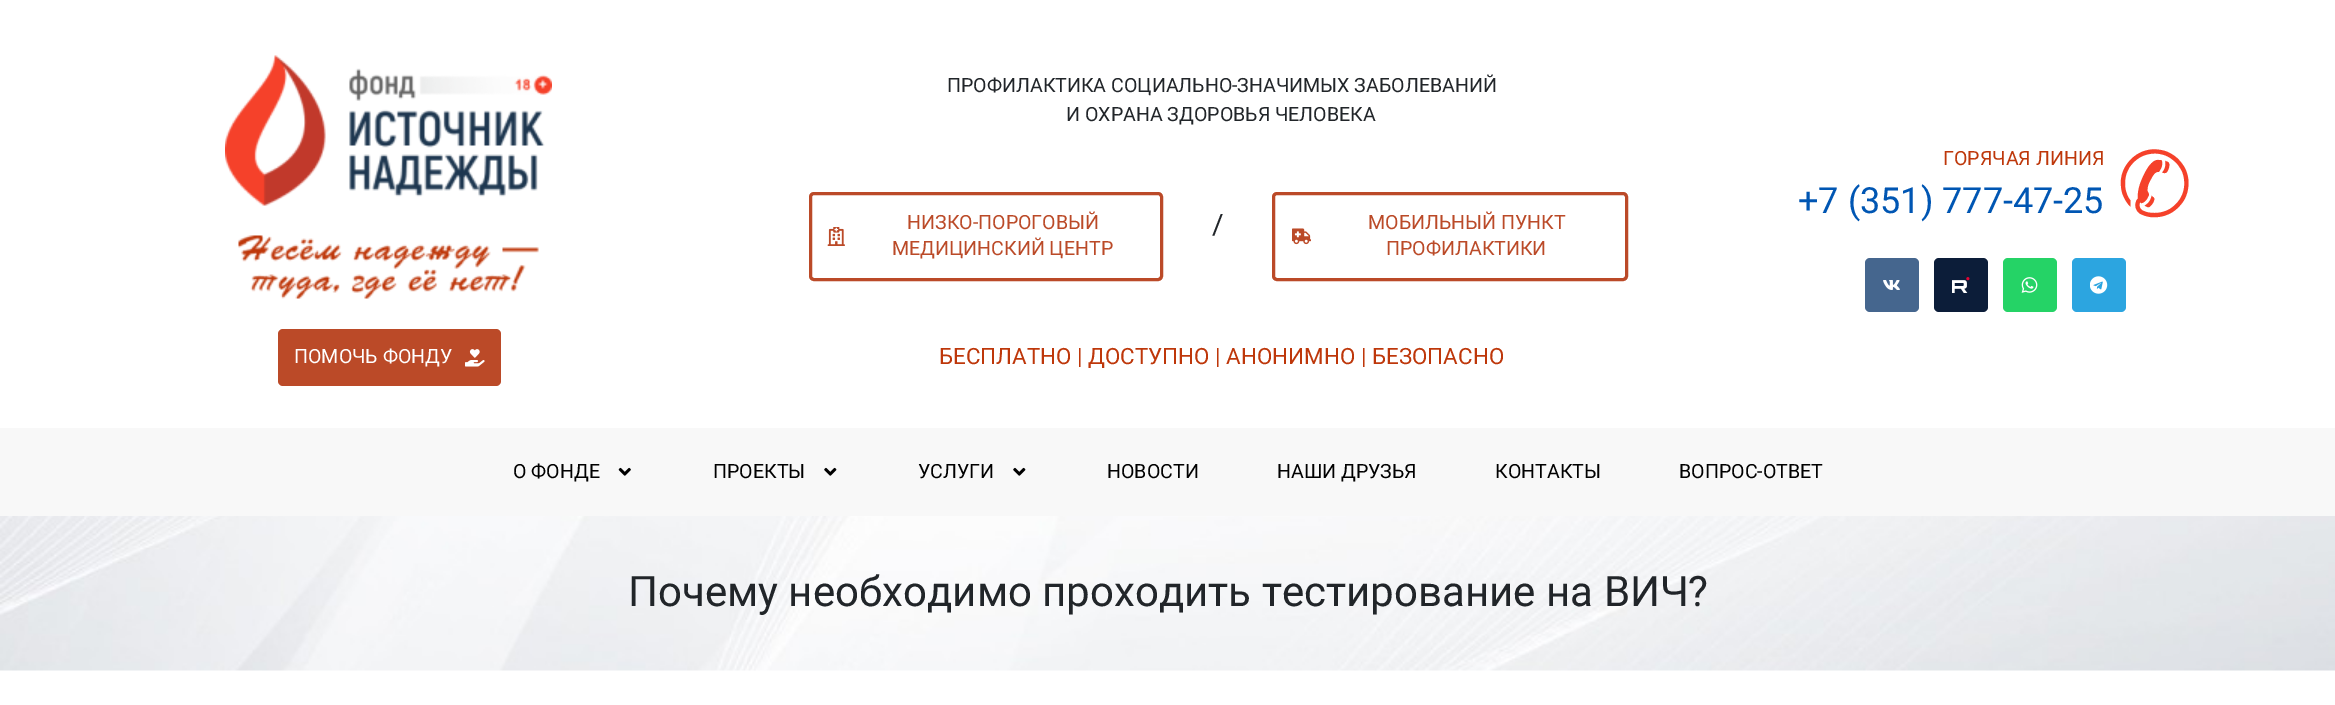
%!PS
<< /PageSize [2335 705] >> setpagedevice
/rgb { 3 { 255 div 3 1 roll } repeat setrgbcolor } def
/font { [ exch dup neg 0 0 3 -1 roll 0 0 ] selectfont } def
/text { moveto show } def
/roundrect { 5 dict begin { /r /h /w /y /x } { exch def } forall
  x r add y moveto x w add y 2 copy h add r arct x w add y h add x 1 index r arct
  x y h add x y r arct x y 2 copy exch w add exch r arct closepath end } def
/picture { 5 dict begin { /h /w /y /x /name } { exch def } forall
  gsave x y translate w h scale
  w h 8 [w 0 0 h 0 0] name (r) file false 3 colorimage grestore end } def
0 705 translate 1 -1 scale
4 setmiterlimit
255 255 255 rgb
0 0 2335 705 rectfill
187 74 40 rgb
3 setlinewidth
810.5 193.5 351 86 3.5 roundrect stroke
(img_01.rgb) 827 227 18 19 picture
1273.5 193.5 353 86 3.5 roundrect stroke
(img_02.rgb) 1292 228 19 17 picture
69 102 142 rgb
1865 258 54 54 5 roundrect fill
(img_03.rgb) 1883 280 17 10 picture
12 29 57 rgb
1934 258 54 54 5 roundrect fill
(img_04.rgb) 1952 277 18 16 picture
37 211 102 rgb
2003 258 54 54 5 roundrect fill
(img_05.rgb) 2021 277 17 16 picture
44 165 224 rgb
2072 258 54 54 5 roundrect fill
(img_06.rgb) 2090 276 18 18 picture
(img_07.rgb) 225 55 327 151 picture
(img_08.rgb) 238 235 301 64 picture
187 74 40 rgb
278 329 223 57 5 roundrect fill
(img_09.rgb) 465 349 20 18 picture
248 248 248 rgb
0 428 2335 88 rectfill
(img_10.rgb) 618 467 13 9 picture
(img_11.rgb) 824 467 13 9 picture
(img_11.rgb) 1013 467 13 9 picture
(img_12.rgb) 0 516 2335 155 picture
/Roboto-Regular 19.6 font
33 37 41 rgb
(ПРОФИЛАКТИКА СОЦИАЛЬНО-ЗНАЧИМЫХ ЗАБОЛЕВАНИЙ) 947 92 text
(И ОХРАНА ЗДОРОВЬЯ ЧЕЛОВЕКА) 1066 121 text
187 74 40 rgb
(НИЗКО-ПОРОГОВЫЙ) 907 229 text
(МЕДИЦИНСКИЙ ЦЕНТР) 892 255 text
/Roboto-Regular 28 font
33 37 41 rgb
(/) 1212 234 text
/Roboto-Regular 19.6 font
187 74 40 rgb
(МОБИЛЬНЫЙ ПУНКТ) 1368 229 text
(ПРОФИЛАКТИКИ) 1386 255 text
/Roboto-Regular 22.4 font
190 55 10 rgb
(БЕСПЛАТНО | ДОСТУПНО | АНОНИМНО | БЕЗОПАСНО) 939 364 text
/Roboto-Regular 19.6 font
(ГОРЯЧАЯ ЛИНИЯ) 1943 165 text
/Roboto-Regular 36 font
0 86 179 rgb
(+7 \(351\) 777-47-25) 1798 213 text
/DejaVuSans-Regular 90 font
245 65 42 rgb
(✆) 2117 216 text
/Roboto-Regular 19.6 font
255 255 255 rgb
(ПОМОЧЬ ФОНДУ) 294 363 text
0 0 0 rgb
(О ФОНДЕ) 513 478 text
(ПРОЕКТЫ) 713 478 text
(УСЛУГИ) 918 478 text
(НОВОСТИ) 1107 478 text
(НАШИ ДРУЗЬЯ) 1277 478 text
(КОНТАКТЫ) 1495 478 text
(ВОПРОС-ОТВЕТ) 1679 478 text
/Roboto-Regular 42 font
33 37 41 rgb
(Почему необходимо проходить тестирование на ВИЧ?) 628 606 text
showpage
